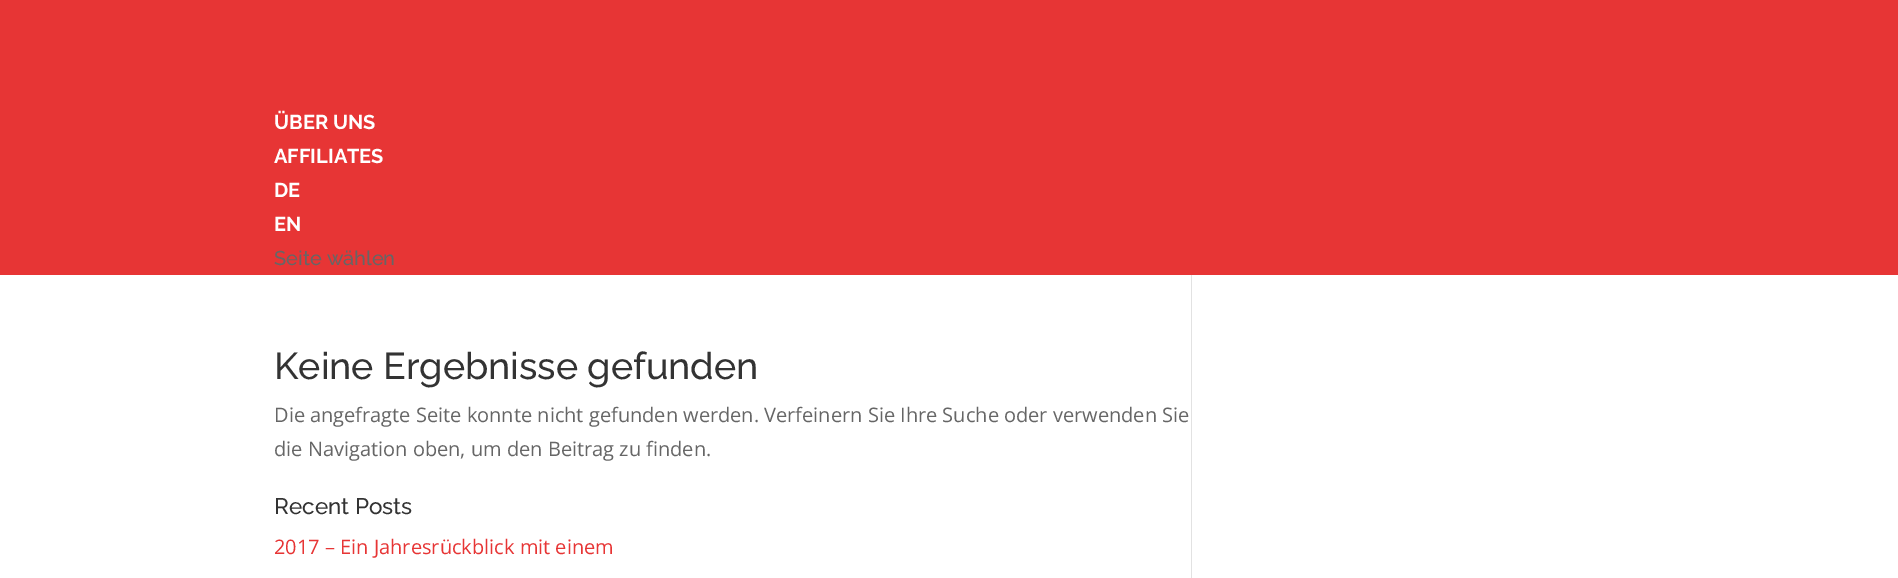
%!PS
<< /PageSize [1898 578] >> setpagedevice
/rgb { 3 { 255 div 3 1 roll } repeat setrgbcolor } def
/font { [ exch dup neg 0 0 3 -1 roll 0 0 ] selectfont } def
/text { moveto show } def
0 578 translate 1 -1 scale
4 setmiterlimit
255 255 255 rgb
0 0 1898 578 rectfill
231 53 53 rgb
0 0 1898 275 rectfill
226 226 226 rgb
1191 275 1 303 rectfill
/Raleway-Bold 20 font
255 255 255 rgb
(ÜBER UNS) 274 129 text
(AFFILIATES) 274 163 text
(DE) 274 197 text
(EN) 274 231 text
/Raleway-Medium 20 font
102 102 102 rgb
(Seite wählen) 274 265 text
/Raleway-Medium 37.5 font
51 51 51 rgb
(Keine Ergebnisse gefunden) 274 379 text
/OpenSans-Regular 20 font
102 102 102 rgb
(Die angefragte Seite konnte nicht gefunden werden. Verfeinern Sie Ihre Suche oder verwenden Sie) 274 422 text
(die Navigation oben, um den Beitrag zu finden.) 274 456 text
/Raleway-Medium 22.5 font
51 51 51 rgb
(Recent Posts) 274 514 text
/OpenSans-Regular 20 font
231 53 53 rgb
(2017 – Ein Jahresrückblick mit einem) 274 554 text
showpage
